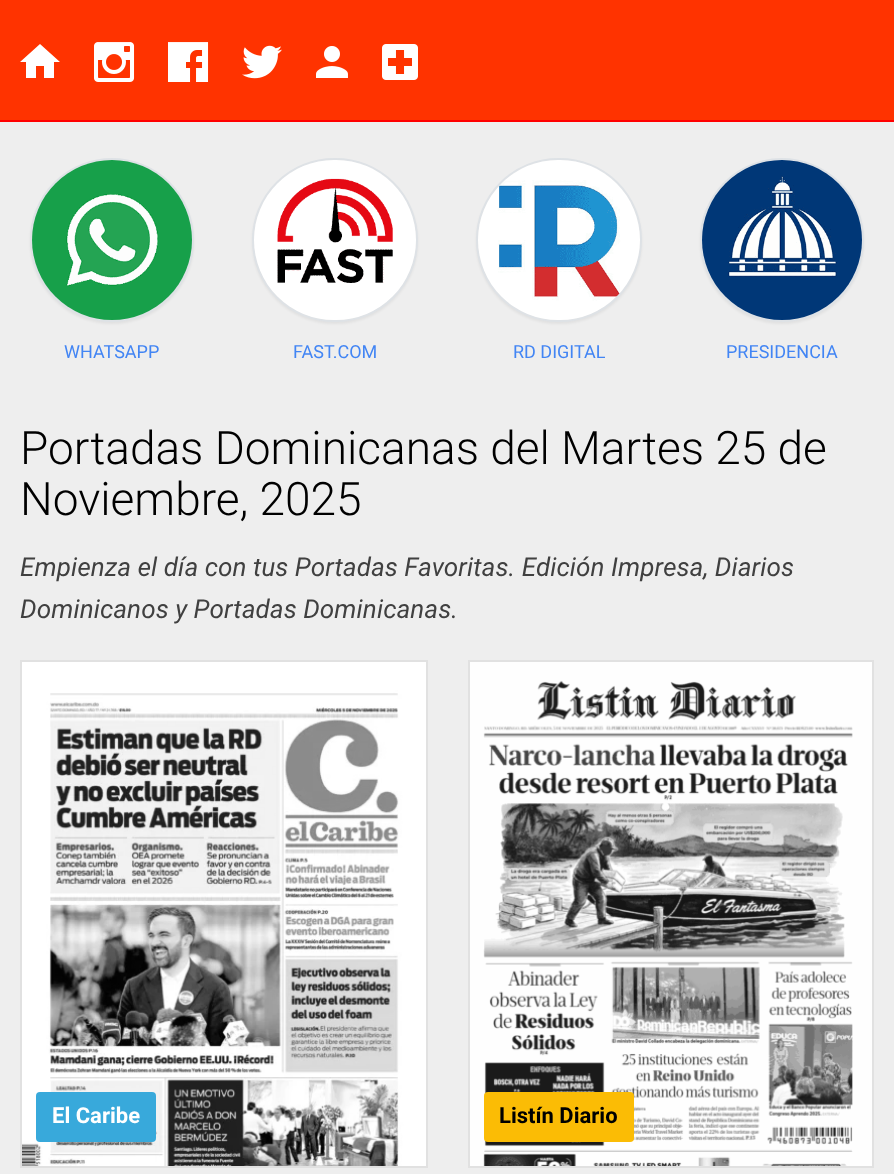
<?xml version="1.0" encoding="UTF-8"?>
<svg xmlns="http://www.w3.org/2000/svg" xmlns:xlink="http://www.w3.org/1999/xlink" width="894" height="1174">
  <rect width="100%" height="100%" fill="#eeeeee" />
  <rect width="894" height="120" fill="#ff3300" />
  <rect y="120" width="894" height="2" fill="#ff0000" />
  <path d="M 36 78 h -10 v -16 h -6 l 20 -18 l 20 18 h -6 v 16 h -10 v -12 h -8 z" fill="#ffffff" />
  <image x="94" y="42" width="41" height="40" xlink:href="image1.png" />
  <image x="168" y="42" width="41" height="40" xlink:href="image2.png" />
  <image x="242" y="45" width="40" height="34" xlink:href="image3.png" />
  <image x="316" y="46" width="32" height="32" xlink:href="image4.png" />
  <image x="382" y="44" width="36" height="36" xlink:href="image5.png" />
  <rect x="30" y="160" width="164" height="164" rx="82" fill="#000000" fill-opacity="0.05" filter="blur(1px)" />
  <circle cx="112" cy="240" r="81" fill="none" stroke="#dee2e6" stroke-width="2" />
  <image x="32" y="160" width="160" height="160" xlink:href="image6.png" />
  <rect x="252" y="160" width="166" height="164" rx="82" fill="#000000" fill-opacity="0.05" filter="blur(1px)" />
  <rect x="253" y="159" width="164" height="162" rx="81" fill="none" stroke="#dee2e6" stroke-width="2" />
  <image x="254" y="160" width="162" height="160" xlink:href="image7.png" />
  <rect x="476" y="160" width="166" height="164" rx="82" fill="#000000" fill-opacity="0.05" filter="blur(1px)" />
  <rect x="477" y="159" width="164" height="162" rx="81" fill="none" stroke="#dee2e6" stroke-width="2" />
  <image x="478" y="160" width="162" height="160" xlink:href="image8.png" />
  <rect x="700" y="160" width="164" height="164" rx="82" fill="#000000" fill-opacity="0.05" filter="blur(1px)" />
  <circle cx="782" cy="240" r="81" fill="none" stroke="#dee2e6" stroke-width="2" />
  <image x="702" y="160" width="160" height="160" xlink:href="image9.png" />
  <rect x="21" y="661" width="406" height="506" fill="none" stroke="#e1e1e1" stroke-width="2" />
  <image x="22" y="662" width="404" height="504" xlink:href="image10.png" />
  <rect x="36" y="1092" width="120" height="50" rx="4" fill="#38a9db" />
  <rect x="469" y="661" width="404" height="506" fill="none" stroke="#e1e1e1" stroke-width="2" />
  <image x="470" y="662" width="402" height="504" xlink:href="image11.png" />
  <rect x="484" y="1092" width="150" height="50" rx="4" fill="#fbbc05" />
  <text x="64" y="358" style="font-family: Roboto; font-size: 18px; fill: #4285f4">WHATSAPP</text>
  <text x="293" y="358" style="font-family: Roboto; font-size: 18px; fill: #4285f4">FAST.COM</text>
  <text x="513" y="358" style="font-family: Roboto; font-size: 18px; fill: #4285f4">RD DIGITAL</text>
  <text x="726" y="358" style="font-family: Roboto; font-size: 18px; fill: #4285f4">PRESIDENCIA</text>
  <text x="20" y="464" style="font-family: Roboto; font-size: 46px; font-weight: 300; fill: #000000">Portadas Dominicanas del Martes 25 de</text>
  <text x="20" y="515" style="font-family: Roboto; font-size: 46px; font-weight: 300; fill: #000000">Noviembre, 2025</text>
  <text x="20" y="576" style="font-family: Roboto; font-size: 26px; font-style: italic; fill: #404040">Empienza el día con tus Portadas Favoritas. Edición Impresa, Diarios</text>
  <text x="20" y="618" style="font-family: Roboto; font-size: 26px; font-style: italic; fill: #404040">Dominicanos y Portadas Dominicanas.</text>
  <text x="52" y="1123" style="font-family: Roboto; font-size: 22px; font-weight: bold; fill: #ffffff">El Caribe</text>
  <text x="499" y="1123" style="font-family: Roboto; font-size: 22px; font-weight: bold; fill: #000000">Listín Diario</text>
</svg>
